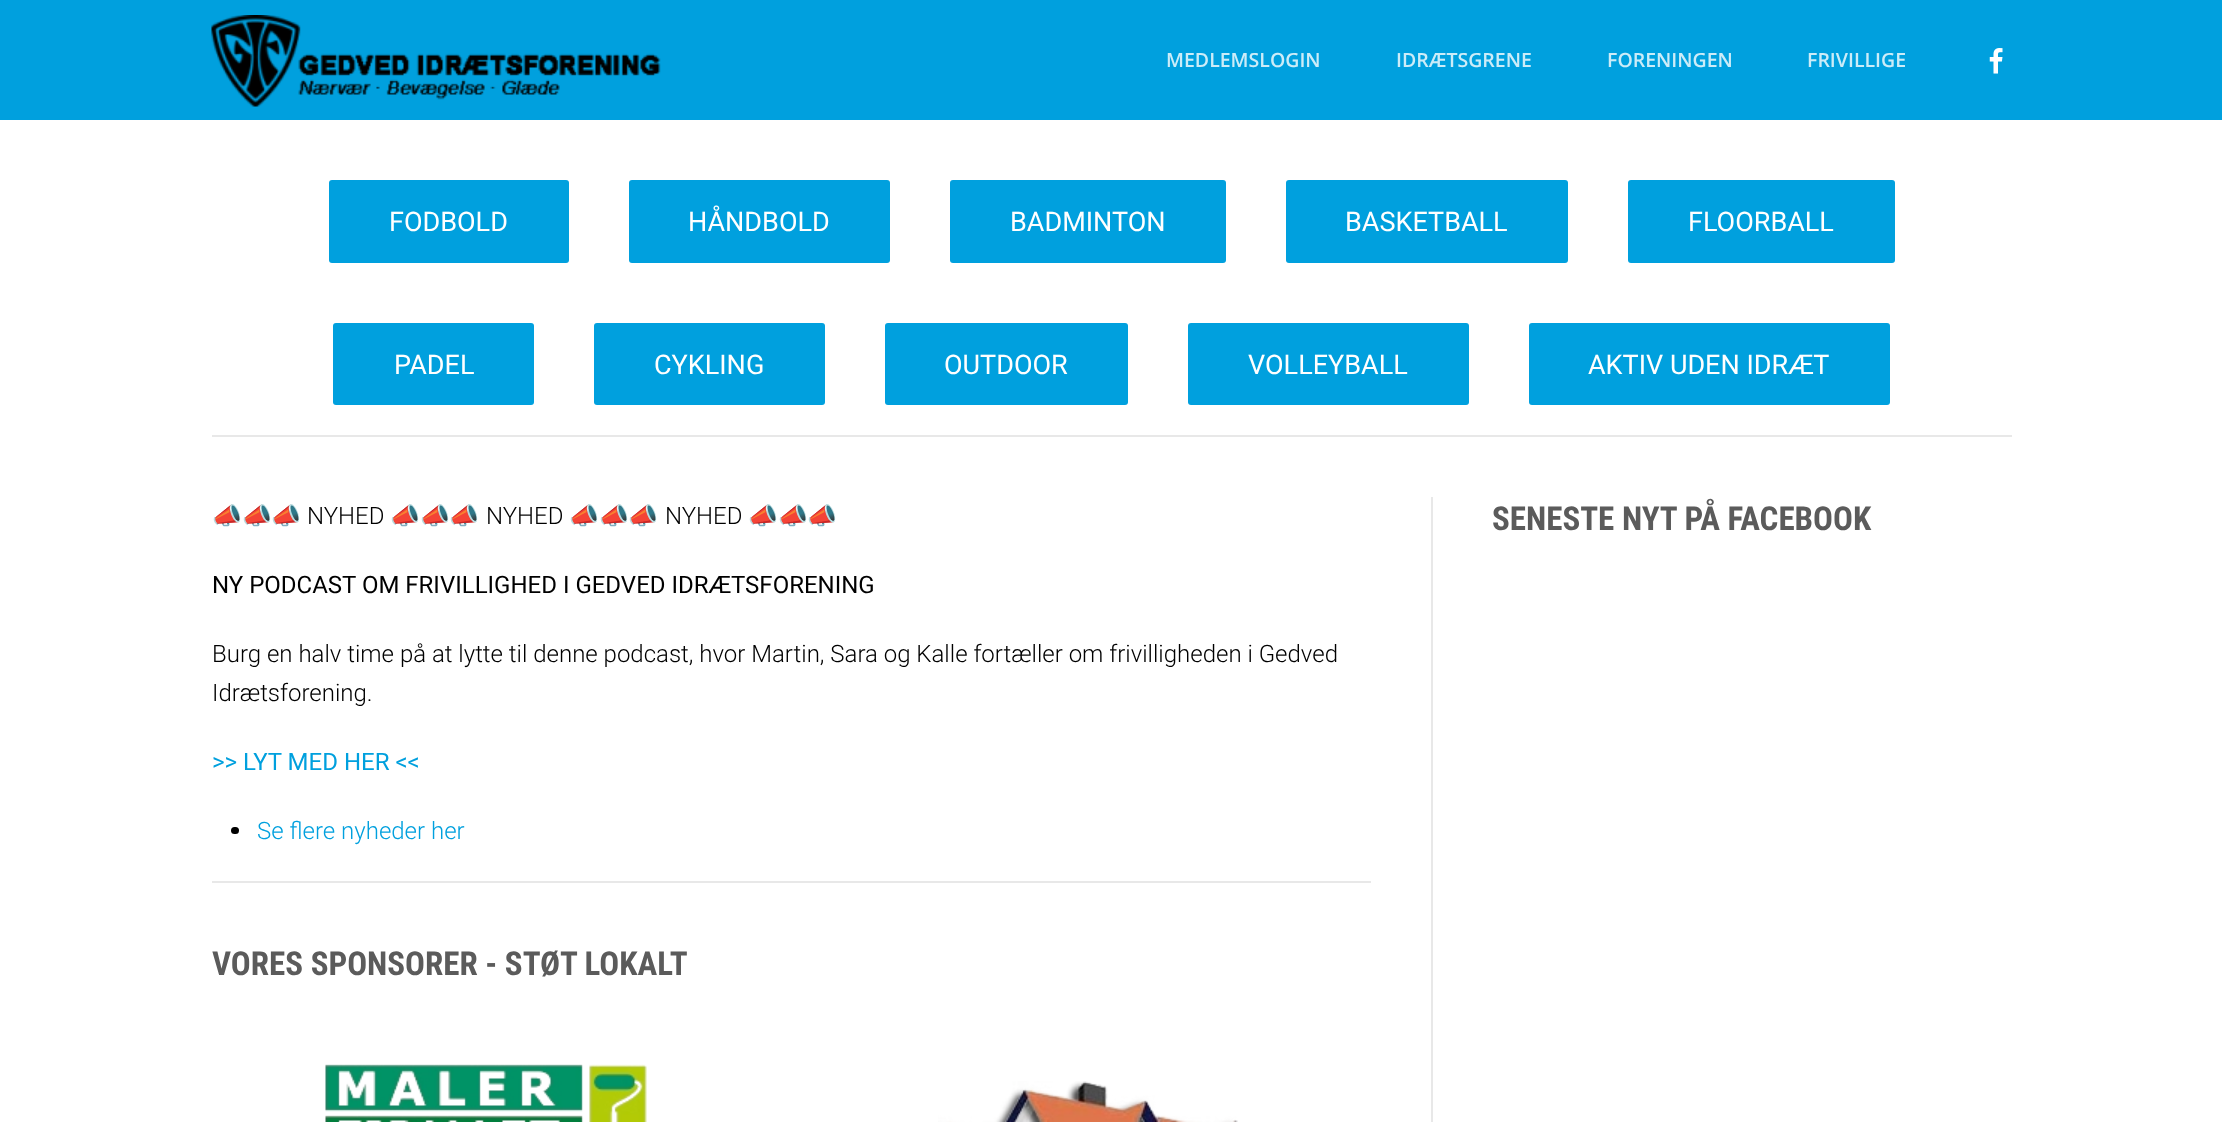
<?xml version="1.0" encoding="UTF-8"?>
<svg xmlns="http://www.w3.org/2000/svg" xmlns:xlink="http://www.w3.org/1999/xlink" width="2222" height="1122">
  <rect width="100%" height="100%" fill="#ffffff" />
  <rect width="2222" height="120" fill="#00a0de" />
  <image x="211" y="15" width="450" height="92" xlink:href="image1.png" />
  <image x="1989" y="48" width="14" height="26" xlink:href="image2.png" />
  <rect x="329" y="180" width="240" height="83" rx="3" fill="#00a0de" />
  <rect x="629" y="180" width="261" height="83" rx="3" fill="#00a0de" />
  <rect x="950" y="180" width="276" height="83" rx="3" fill="#00a0de" />
  <rect x="1286" y="180" width="282" height="83" rx="3" fill="#00a0de" />
  <rect x="1628" y="180" width="267" height="83" rx="3" fill="#00a0de" />
  <rect x="333" y="323" width="201" height="82" rx="3" fill="#00a0de" />
  <rect x="594" y="323" width="231" height="82" rx="3" fill="#00a0de" />
  <rect x="885" y="323" width="243" height="82" rx="3" fill="#00a0de" />
  <rect x="1188" y="323" width="281" height="82" rx="3" fill="#00a0de" />
  <rect x="1529" y="323" width="361" height="82" rx="3" fill="#00a0de" />
  <rect x="212" y="435" width="1800" height="2" fill="#e8e8e8" />
  <rect x="231" y="827" width="8" height="7" rx="3.5" fill="#000000" />
  <rect x="212" y="881" width="1159" height="2" fill="#e8e8e8" />
  <image x="325" y="1064" width="322" height="58" xlink:href="image3.png" />
  <image x="938" y="1081" width="300" height="41" xlink:href="image4.png" />
  <rect x="1431" y="497" width="2" height="625" fill="#e8e8e8" />
  <text x="1166" y="67" style="font-family: Open Sans; font-size: 19.5px; font-weight: 600; fill: #ccecf8">MEDLEMSLOGIN</text>
  <text x="1396" y="67" style="font-family: Open Sans; font-size: 19.5px; font-weight: 600; fill: #ccecf8">IDRÆTSGRENE</text>
  <text x="1607" y="67" style="font-family: Open Sans; font-size: 19.5px; font-weight: 600; fill: #ccecf8">FORENINGEN</text>
  <text x="1807" y="67" style="font-family: Open Sans; font-size: 19.5px; font-weight: 600; fill: #ccecf8">FRIVILLIGE</text>
  <text x="389" y="231" style="font-family: Roboto; font-size: 27px; fill: #ffffff">FODBOLD</text>
  <text x="688" y="231" style="font-family: Roboto; font-size: 27px; fill: #ffffff">HÅNDBOLD</text>
  <text x="1010" y="231" style="font-family: Roboto; font-size: 27px; fill: #ffffff">BADMINTON</text>
  <text x="1345" y="231" style="font-family: Roboto; font-size: 27px; fill: #ffffff">BASKETBALL</text>
  <text x="1688" y="231" style="font-family: Roboto; font-size: 27px; fill: #ffffff">FLOORBALL</text>
  <text x="394" y="374" style="font-family: Roboto; font-size: 27px; fill: #ffffff">PADEL</text>
  <text x="654" y="374" style="font-family: Roboto; font-size: 27px; fill: #ffffff">CYKLING</text>
  <text x="944" y="374" style="font-family: Roboto; font-size: 27px; fill: #ffffff">OUTDOOR</text>
  <text x="1248" y="374" style="font-family: Roboto; font-size: 27px; fill: #ffffff">VOLLEYBALL</text>
  <text x="1588" y="374" style="font-family: Roboto; font-size: 27px; fill: #ffffff">AKTIV UDEN IDRÆT</text>
  <text x="212" y="524" style="font-family: Noto Color Emoji; font-size: 24px; fill: #000000">📣📣📣</text>
  <text x="307" y="524" style="font-family: Roboto; font-size: 24px; font-weight: 300; fill: #000000">NYHED</text>
  <text x="390" y="524" style="font-family: Noto Color Emoji; font-size: 24px; fill: #000000">📣📣📣</text>
  <text x="486" y="524" style="font-family: Roboto; font-size: 24px; font-weight: 300; fill: #000000">NYHED</text>
  <text x="569" y="524" style="font-family: Noto Color Emoji; font-size: 24px; fill: #000000">📣📣📣</text>
  <text x="665" y="524" style="font-family: Roboto; font-size: 24px; font-weight: 300; fill: #000000">NYHED</text>
  <text x="748" y="524" style="font-family: Noto Color Emoji; font-size: 24px; fill: #000000">📣📣📣</text>
  <text x="212" y="593" style="font-family: Roboto; font-size: 24px; fill: #000000">NY PODCAST OM FRIVILLIGHED I GEDVED IDRÆTSFORENING</text>
  <text x="212" y="662" style="font-family: Roboto; font-size: 24px; font-weight: 300; fill: #000000">Burg en halv time på at lytte til denne podcast, hvor Martin, Sara og Kalle fortæller om frivilligheden i Gedved</text>
  <text x="212" y="701" style="font-family: Roboto; font-size: 24px; font-weight: 300; fill: #000000">Idrætsforening.</text>
  <text x="212" y="770" style="font-family: Roboto; font-size: 24px; fill: #00a0de">&gt;&gt; LYT MED HER &lt;&lt;</text>
  <text x="257" y="839" style="font-family: Roboto; font-size: 24px; font-weight: 300; fill: #00a0de">Se flere nyheder her</text>
  <text x="212" y="975" style="font-family: Roboto Condensed; font-size: 33px; font-weight: bold; fill: #5b5b5b">VORES SPONSORER - STØT LOKALT</text>
  <text x="1492" y="530" style="font-family: Roboto Condensed; font-size: 33px; font-weight: bold; fill: #5b5b5b">SENESTE NYT PÅ FACEBOOK</text>
</svg>
